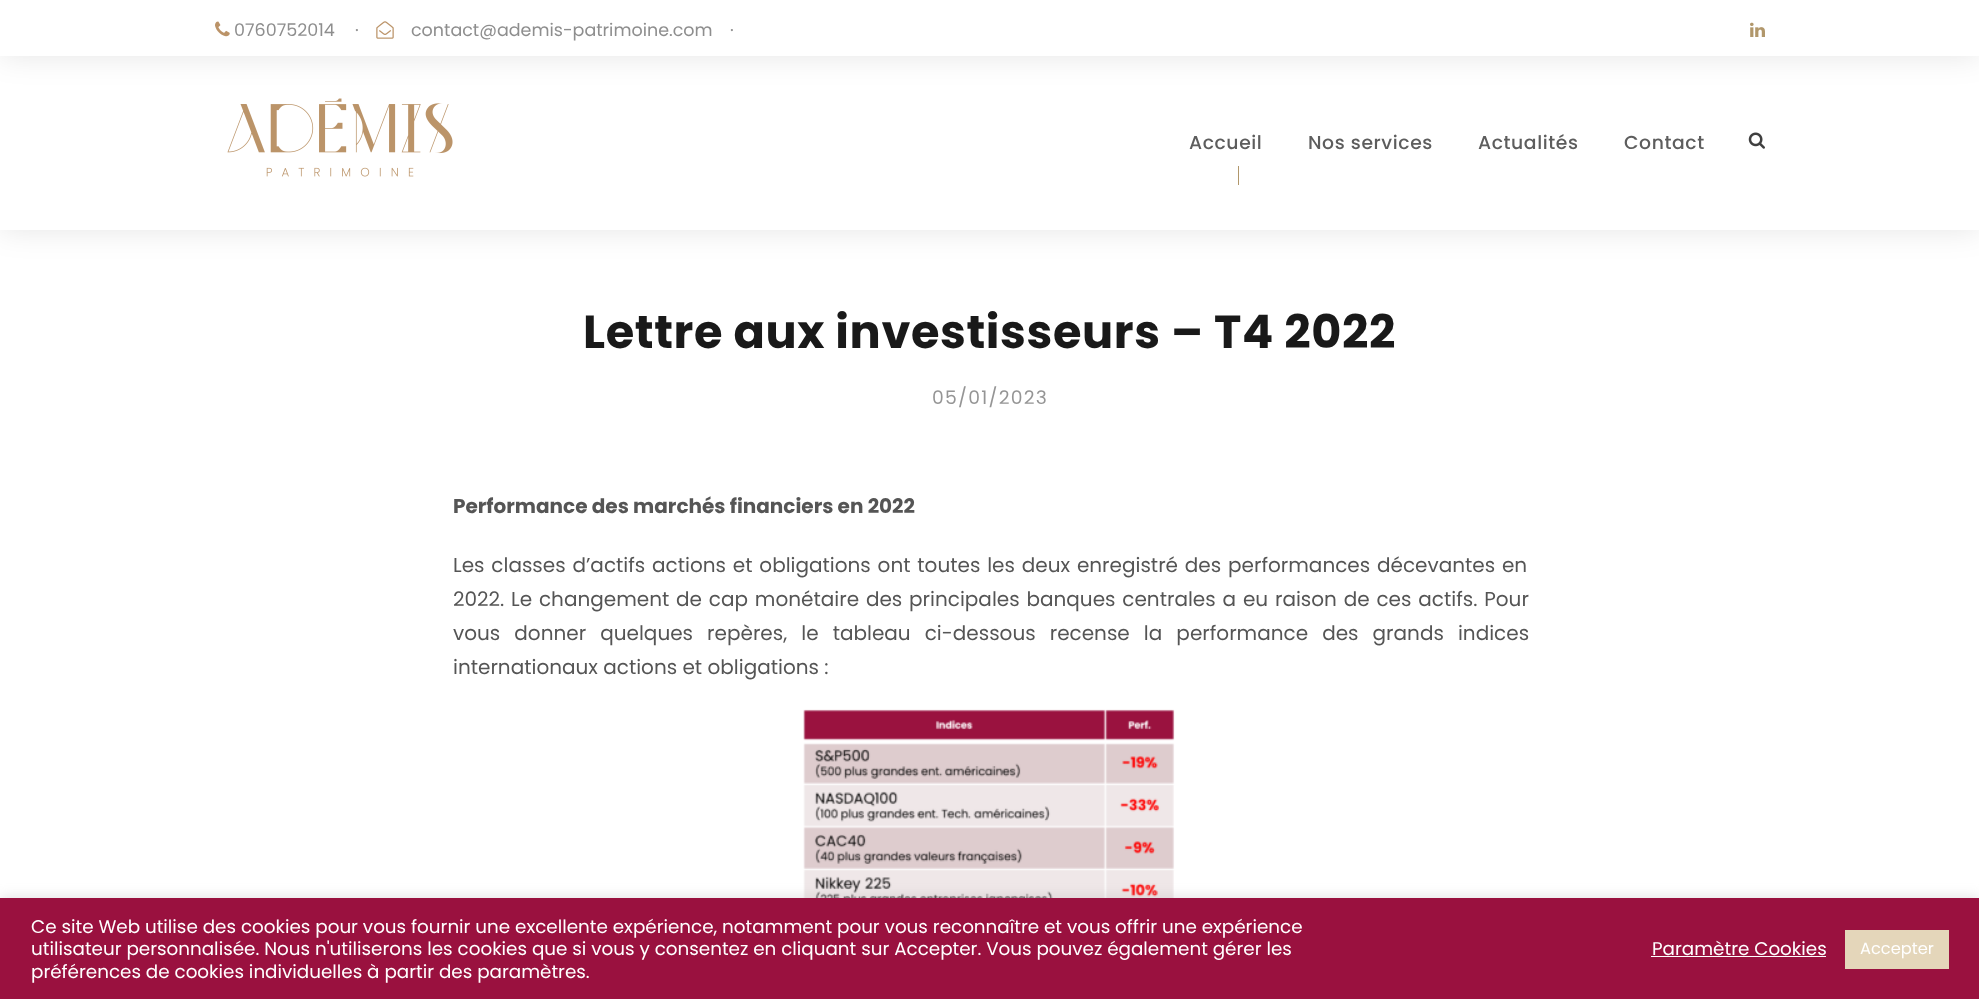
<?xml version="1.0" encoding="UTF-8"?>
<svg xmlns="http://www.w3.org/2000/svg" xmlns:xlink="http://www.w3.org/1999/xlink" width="1979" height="999">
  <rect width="100%" height="100%" fill="#ffffff" />
  <rect y="56" width="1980" height="174" fill="#000000" fill-opacity="0.1" filter="blur(15px)" />
  <rect y="56" width="1979" height="174" fill="#ffffff" />
  <image x="227" y="98" width="226" height="79" xlink:href="image4.png" />
  <rect width="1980" height="56" fill="#000000" fill-opacity="0.1" filter="blur(15px)" />
  <rect width="1979" height="56" fill="#ffffff" />
  <image x="215" y="21" width="15" height="16" xlink:href="image1.png" />
  <image x="376" y="21" width="18" height="18" xlink:href="image2.png" />
  <image x="1750" y="22" width="15" height="15" xlink:href="image3.png" />
  <rect x="1238" y="166" width="1" height="19" fill="#b1976b" />
  <image x="1748" y="132" width="17" height="17" xlink:href="image5.png" />
  <image x="803" y="709" width="372" height="189" xlink:href="image6.png" />
  <rect y="896" width="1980" height="103" fill="#acabab" fill-opacity="0.3" filter="blur(6px)" />
  <rect y="898" width="1979" height="101" fill="#9a113f" />
  <rect x="1651" y="956" width="175" height="1" fill="#ffffff" />
  <rect x="1845" y="930" width="104" height="39" fill="#e4d6ba" />
  <text x="234" y="36" style="font-family: Poppins; font-size: 17.5px; fill: #8e8e8e">0760752014</text>
  <text x="355" y="36" style="font-family: Poppins; font-size: 17.5px; fill: #8e8e8e">·</text>
  <text x="411" y="36" style="font-family: Poppins; font-size: 17.5px; fill: #8e8e8e">contact@ademis-patrimoine.com</text>
  <text x="730" y="36" style="font-family: Poppins; font-size: 17.5px; fill: #8e8e8e">·</text>
  <text x="1189" y="149" style="font-family: Poppins; font-size: 18.75px; font-weight: 500; letter-spacing: 0.6px; fill: #5d5d5d">Accueil</text>
  <text x="1308" y="149" style="font-family: Poppins; font-size: 18.75px; font-weight: 500; letter-spacing: 0.6px; fill: #5d5d5d">Nos services</text>
  <text x="1478" y="149" style="font-family: Poppins; font-size: 18.75px; font-weight: 500; letter-spacing: 0.6px; fill: #5d5d5d">Actualités</text>
  <text x="1624" y="149" style="font-family: Poppins; font-size: 18.75px; font-weight: 500; letter-spacing: 0.6px; fill: #5d5d5d">Contact</text>
  <text x="583" y="348" style="font-family: Poppins; font-size: 46.25px; font-weight: bold; letter-spacing: 0.6px; fill: #191919">Lettre aux investisseurs – T4 2022</text>
  <text x="932" y="404" style="font-family: Poppins; font-size: 18.75px; letter-spacing: 1.25px; fill: #959595">05/01/2023</text>
  <text x="453" y="513" style="font-family: Poppins; font-size: 20px; font-weight: bold; fill: #555555">Performance des marchés financiers en 2022</text>
  <text x="453" y="572" word-spacing="1.5" style="font-family: Poppins; font-size: 20px; fill: #555555">Les classes d’actifs actions et obligations ont toutes les deux enregistré des performances décevantes en</text>
  <text x="453" y="606" word-spacing="1.5" style="font-family: Poppins; font-size: 20px; fill: #555555">2022. Le changement de cap monétaire des principales banques centrales a eu raison de ces actifs. Pour</text>
  <text x="453" y="640" word-spacing="8.75" style="font-family: Poppins; font-size: 20px; fill: #555555">vous donner quelques repères, le tableau ci-dessous recense la performance des grands indices</text>
  <text x="453" y="674" style="font-family: Poppins; font-size: 20px; fill: #555555">internationaux actions et obligations :</text>
  <text x="31" y="933" style="font-family: Poppins; font-size: 18.33px; fill: #ffffff">Ce site Web utilise des cookies pour vous fournir une excellente expérience, notamment pour vous reconnaître et vous offrir une expérience</text>
  <text x="31" y="955" style="font-family: Poppins; font-size: 18.33px; fill: #ffffff">utilisateur personnalisée. Nous n'utiliserons les cookies que si vous y consentez en cliquant sur Accepter. Vous pouvez également gérer les</text>
  <text x="31" y="978" style="font-family: Poppins; font-size: 18.33px; fill: #ffffff">préférences de cookies individuelles à partir des paramètres.</text>
  <text x="1652" y="955" style="font-family: Poppins; font-size: 18.33px; fill: #ffffff">Paramètre Cookies</text>
  <text x="1860" y="954" style="font-family: Poppins; font-size: 16.25px; fill: #ffffff">Accepter</text>
</svg>
